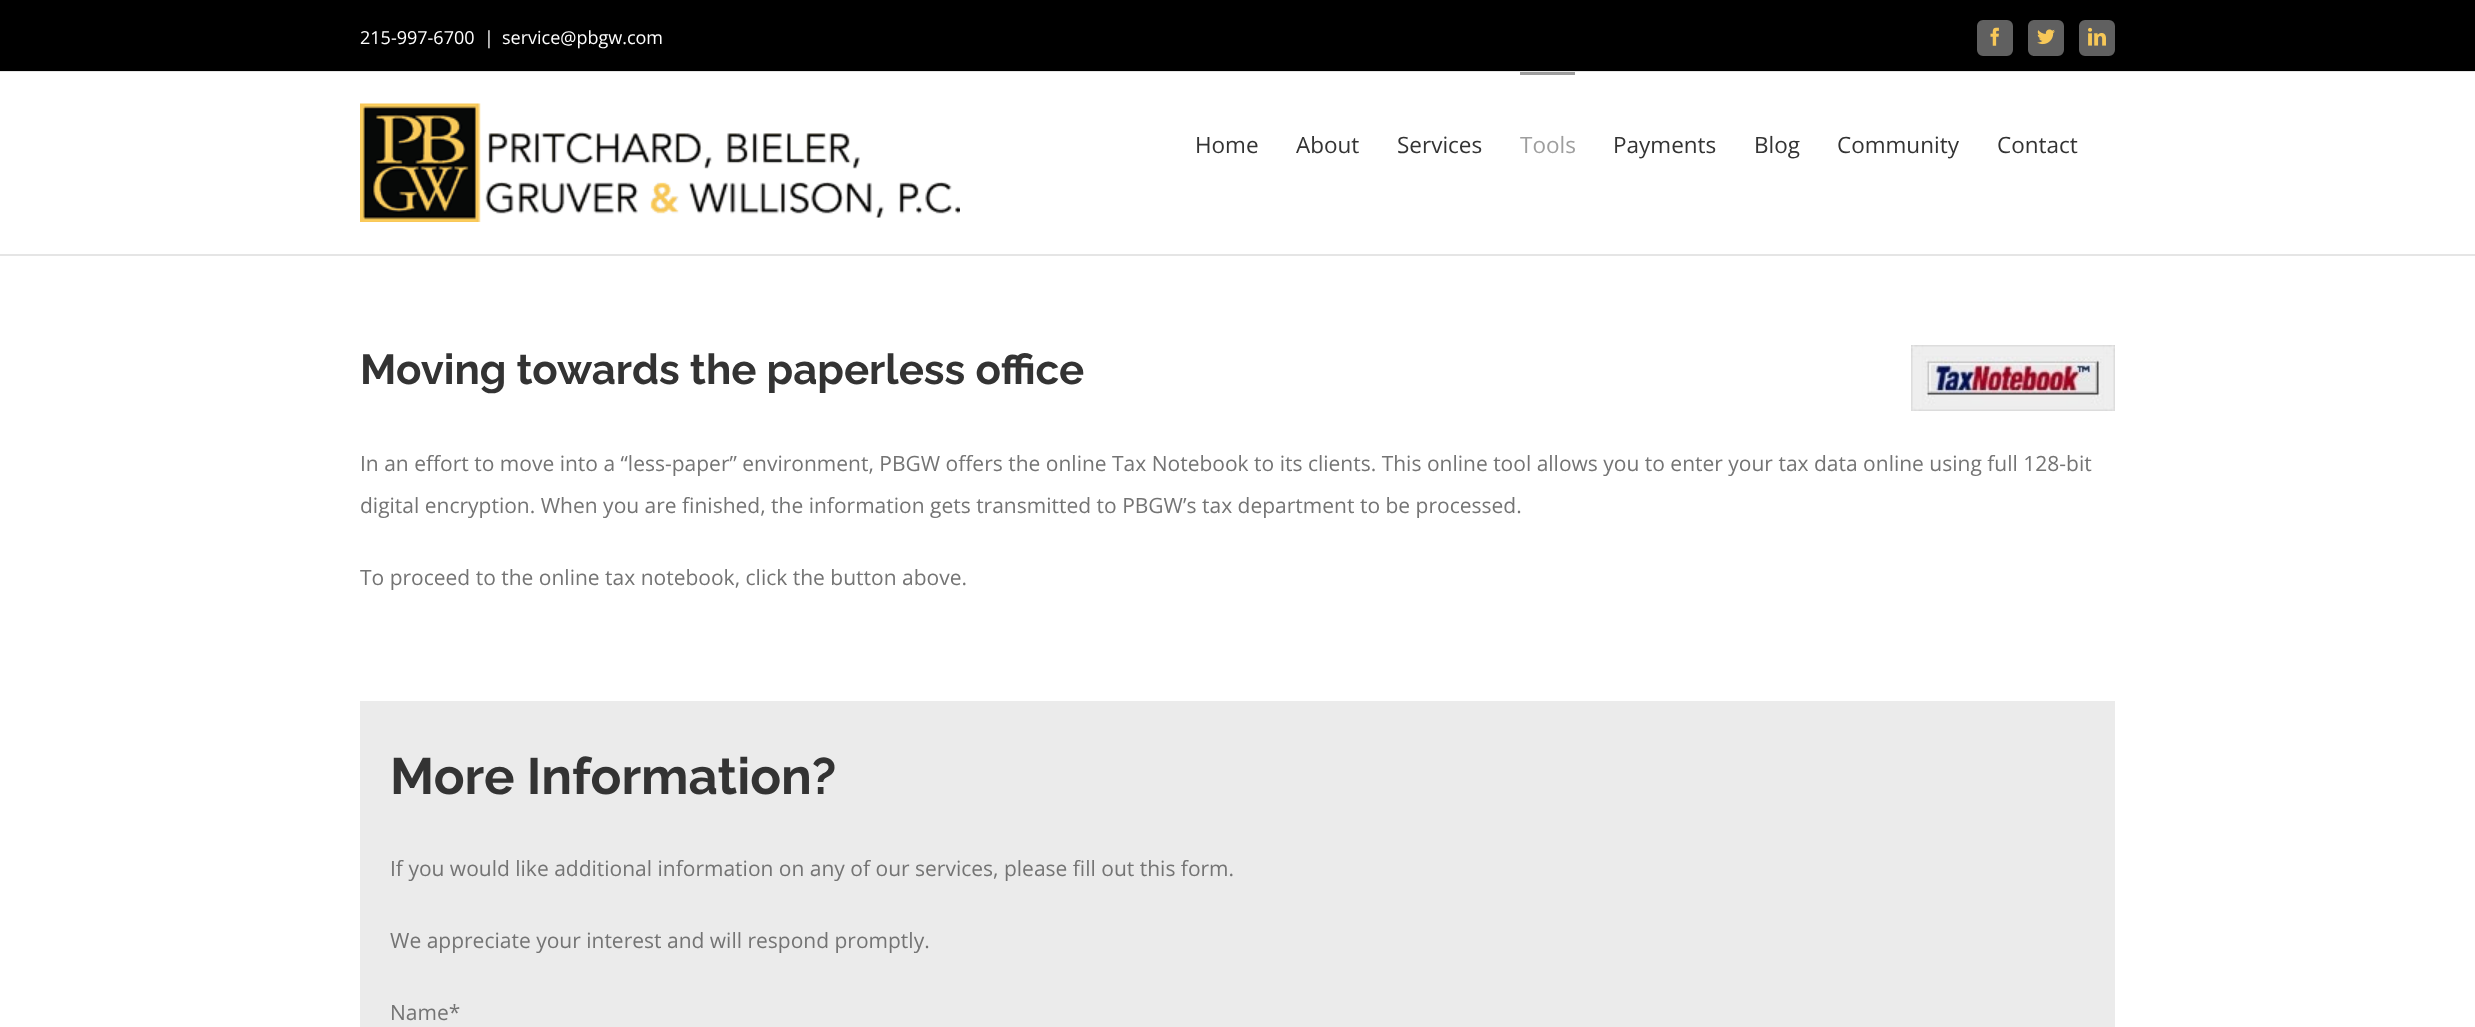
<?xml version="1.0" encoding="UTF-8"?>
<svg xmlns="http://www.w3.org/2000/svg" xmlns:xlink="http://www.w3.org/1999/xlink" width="2475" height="1027">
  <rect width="100%" height="100%" fill="#ffffff" />
  <rect width="2475" height="71" fill="#000000" />
  <rect y="71" width="2475" height="1" fill="#e5e5e5" />
  <rect x="1978" y="21" width="34" height="34" rx="5" fill="#606060" stroke="#606060" stroke-width="2" />
  <image x="1990" y="27" width="9" height="19" xlink:href="image1.png" />
  <rect x="2029" y="21" width="34" height="34" rx="5" fill="#606060" stroke="#606060" stroke-width="2" />
  <image x="2037" y="29" width="18" height="16" xlink:href="image2.png" />
  <rect x="2080" y="21" width="34" height="34" rx="5" fill="#606060" stroke="#606060" stroke-width="2" />
  <image x="2088" y="27" width="18" height="19" xlink:href="image3.png" />
  <rect y="254" width="2475" height="2" fill="#e5e5e5" />
  <image x="360" y="103" width="600" height="119" xlink:href="image4.png" />
  <rect x="1520" y="72" width="55" height="3" fill="#9e9e9e" />
  <image x="1911" y="345" width="204" height="66" xlink:href="image5.png" />
  <rect x="360" y="701" width="1755" height="326" fill="#ebebeb" />
  <text x="360" y="44" style="font-family: Open Sans; font-size: 18px; fill: #ffffff">215-997-6700</text>
  <text x="484" y="44" style="font-family: Open Sans; font-size: 18px; fill: #ffffff">|</text>
  <text x="502" y="44" style="font-family: Open Sans; font-size: 18px; fill: #ffffff">service@pbgw.com</text>
  <text x="1195" y="153" style="font-family: Open Sans; font-size: 22.5px; fill: #333333">Home</text>
  <text x="1296" y="153" style="font-family: Open Sans; font-size: 22.5px; fill: #333333">About</text>
  <text x="1397" y="153" style="font-family: Open Sans; font-size: 22.5px; fill: #333333">Services</text>
  <text x="1520" y="153" style="font-family: Open Sans; font-size: 22.5px; fill: #9e9e9e">Tools</text>
  <text x="1613" y="153" style="font-family: Open Sans; font-size: 22.5px; fill: #333333">Payments</text>
  <text x="1754" y="153" style="font-family: Open Sans; font-size: 22.5px; fill: #333333">Blog</text>
  <text x="1837" y="153" style="font-family: Open Sans; font-size: 22.5px; fill: #333333">Community</text>
  <text x="1997" y="153" style="font-family: Open Sans; font-size: 22.5px; fill: #333333">Contact</text>
  <text x="360" y="384" style="font-family: Raleway; font-size: 42px; font-weight: 100; fill: #333333">Moving towards the paperless office</text>
  <text x="360" y="471" style="font-family: Open Sans; font-size: 21px; fill: #747474">In an effort to move into a “less-paper” environment, PBGW offers the online Tax Notebook to its clients. This online tool allows you to enter your tax data online using full 128-bit</text>
  <text x="360" y="513" style="font-family: Open Sans; font-size: 21px; fill: #747474">digital encryption. When you are finished, the information gets transmitted to PBGW’s tax department to be processed.</text>
  <text x="360" y="585" style="font-family: Open Sans; font-size: 21px; fill: #747474">To proceed to the online tax notebook, click the button above.</text>
  <text x="390" y="794" style="font-family: Raleway; font-size: 51px; font-weight: 100; fill: #333333">More Information?</text>
  <text x="390" y="876" style="font-family: Open Sans; font-size: 21px; fill: #747474">If you would like additional information on any of our services, please fill out this form.</text>
  <text x="390" y="948" style="font-family: Open Sans; font-size: 21px; fill: #747474">We appreciate your interest and will respond promptly.</text>
  <text x="390" y="1020" style="font-family: Open Sans; font-size: 21px; fill: #747474">Name*</text>
</svg>
